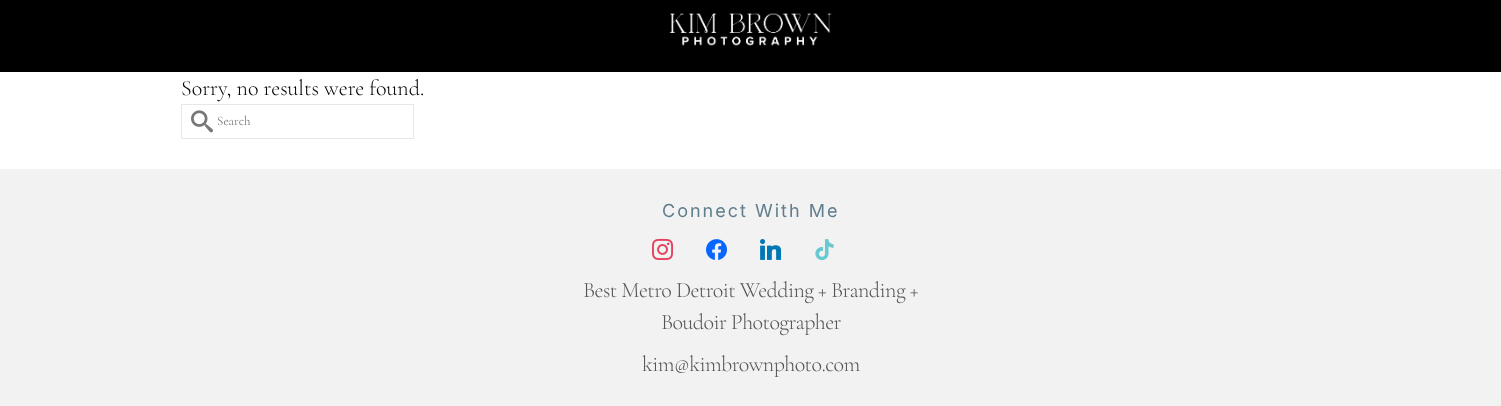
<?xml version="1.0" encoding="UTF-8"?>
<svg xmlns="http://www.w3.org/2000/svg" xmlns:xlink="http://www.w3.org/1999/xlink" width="1501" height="406">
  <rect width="100%" height="100%" fill="#ffffff" />
  <rect width="1501" height="72" fill="#000000" />
  <image x="669" y="13" width="163" height="33" xlink:href="image1.png" />
  <rect x="181.5" y="104.5" width="232" height="34" fill="none" stroke="#e7e7e7" />
  <image x="191" y="110" width="22" height="23" xlink:href="image2.png" />
  <rect y="169" width="1501" height="237" fill="#f2f2f2" />
  <image x="652" y="238" width="21" height="22" xlink:href="image3.png" />
  <image x="706" y="239" width="21" height="21" xlink:href="image4.png" />
  <image x="760" y="239" width="22" height="21" xlink:href="image5.png" />
  <image x="815" y="239" width="19" height="22" xlink:href="image6.png" />
  <text x="181" y="95" style="font-family: Cormorant Garamond; font-size: 22px; font-weight: 300; fill: #000000">Sorry, no results were found.</text>
  <text x="217" y="125" style="font-family: Cormorant Garamond; font-size: 13px; fill: #757575">Search</text>
  <text x="662" y="217" style="font-family: Inter; font-size: 18px; letter-spacing: 2px; fill: #5f7d8d">Connect With Me</text>
  <text x="583" y="297" style="font-family: Cormorant Garamond; font-size: 22px; font-weight: 300; letter-spacing: -0.55px; fill: #545454">Best Metro Detroit Wedding + Branding +</text>
  <text x="661" y="329" style="font-family: Cormorant Garamond; font-size: 22px; font-weight: 300; letter-spacing: -0.55px; fill: #545454">Boudoir Photographer</text>
  <text x="642" y="371" style="font-family: Cormorant Garamond; font-size: 22px; font-weight: 300; letter-spacing: -0.55px; fill: #545454">kim@kimbrownphoto.com</text>
</svg>
